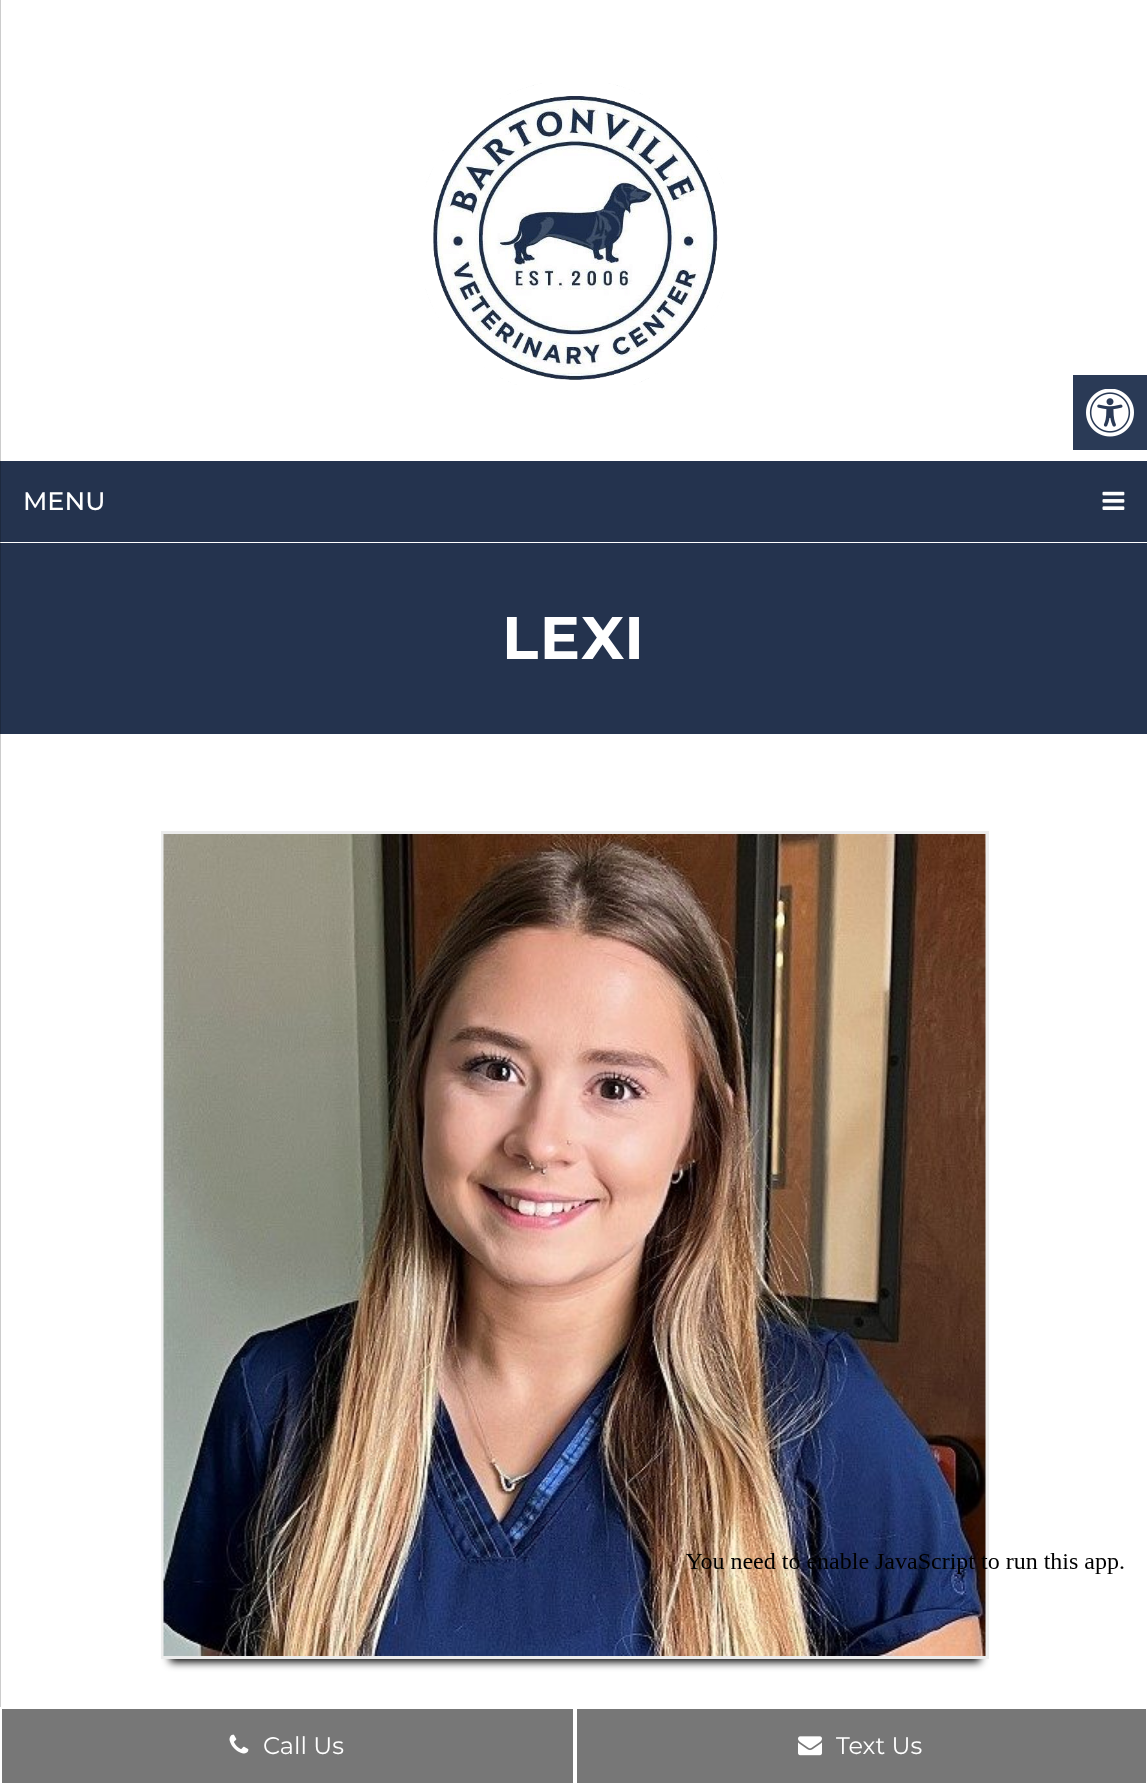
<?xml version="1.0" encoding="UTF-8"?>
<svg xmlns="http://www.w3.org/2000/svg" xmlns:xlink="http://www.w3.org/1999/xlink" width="1147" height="1785">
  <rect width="100%" height="100%" fill="#ffffff" />
  <rect width="1" height="1707" fill="#cccccc" />
  <rect x="1073" y="375" width="74" height="75" fill="#2a3a56" />
  <image x="1086" y="389" width="48" height="48" xlink:href="image1.png" />
  <image x="425" y="83" width="299" height="302" xlink:href="image2.png" />
  <rect x="1" y="461" width="1146" height="81" fill="#24334e" />
  <rect y="461" width="1" height="81" fill="#1d293e" />
  <image x="1102" y="491" width="23" height="19" xlink:href="image3.png" />
  <rect x="1" y="543" width="1146" height="191" fill="#24334e" />
  <rect y="543" width="1" height="191" fill="#1d293e" />
  <rect x="170" y="852" width="810" height="810" fill="#000000" filter="blur(4.5px)" />
  <rect x="162.5" y="832.5" width="825" height="825" fill="none" stroke="#ececec" stroke-width="3" />
  <image x="163" y="834" width="823" height="822" xlink:href="image4.png" />
  <image x="686" y="1553" width="438" height="21" xlink:href="image5.png" />
  <rect x="2" y="1709" width="571" height="74" fill="#777777" />
  <image x="229" y="1734" width="20" height="20" xlink:href="image6.png" />
  <rect x="577" y="1709" width="569" height="74" fill="#777777" />
  <image x="798" y="1736" width="24" height="20" xlink:href="image7.png" />
  <text x="23" y="510" style="font-family: Montserrat; font-size: 25.5px; font-weight: 500; fill: #ffffff">MENU</text>
  <text x="502" y="659" style="font-family: Montserrat; font-size: 60px; font-weight: bold; letter-spacing: 1.5px; fill: #ffffff">LEXI</text>
  <text x="263" y="1754" style="font-family: Montserrat; font-size: 24px; fill: #ffffff">Call Us</text>
  <text x="836" y="1754" style="font-family: Montserrat; font-size: 24px; fill: #ffffff">Text Us</text>
</svg>
